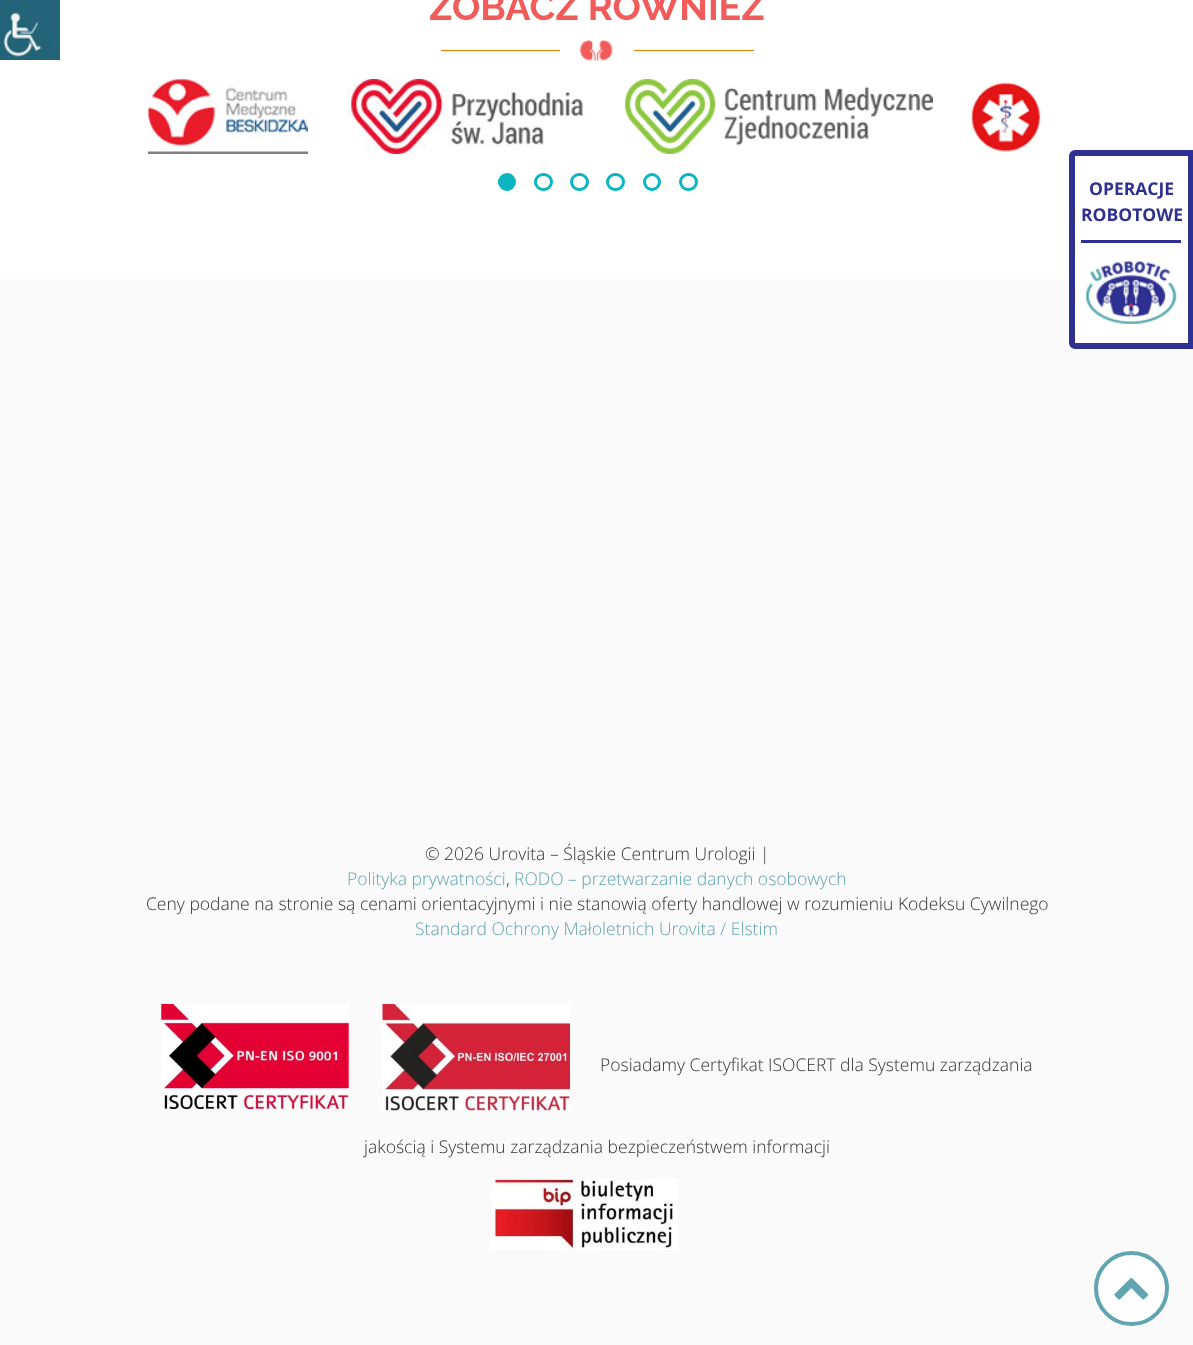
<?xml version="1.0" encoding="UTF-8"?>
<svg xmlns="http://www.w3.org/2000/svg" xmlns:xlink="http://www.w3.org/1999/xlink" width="1193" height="1345">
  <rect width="100%" height="100%" fill="#ffffff" />
  <image x="0" y="0" width="60" height="60" xlink:href="image1.png" />
  <rect x="441" y="50" width="119" height="1" fill="#ef7d00" />
  <image x="579" y="39" width="34" height="22" xlink:href="image2.png" />
  <rect x="634" y="50" width="120" height="1" fill="#ef7d00" />
  <image x="148" y="79" width="160" height="75" xlink:href="image3.png" />
  <image x="345" y="79" width="240" height="75" xlink:href="image4.png" />
  <image x="624" y="79" width="309" height="75" xlink:href="image5.png" />
  <image x="971" y="82" width="70" height="70" xlink:href="image6.png" />
  <circle cx="507" cy="182" r="7.5" fill="#0bb5c2" stroke="#0bb5c2" stroke-width="3" />
  <rect x="535.5" y="174.5" width="16" height="15" rx="7.5" fill="none" stroke="#0bb5c2" stroke-width="3" />
  <rect x="571.5" y="174.5" width="16" height="15" rx="7.5" fill="none" stroke="#0bb5c2" stroke-width="3" />
  <rect x="607.5" y="174.5" width="16" height="15" rx="7.5" fill="none" stroke="#0bb5c2" stroke-width="3" />
  <circle cx="652" cy="182" r="7.5" fill="none" stroke="#0bb5c2" stroke-width="3" />
  <rect x="680.5" y="174.5" width="16" height="15" rx="7.5" fill="none" stroke="#0bb5c2" stroke-width="3" />
  <rect y="279" width="1193" height="1066" fill="#fafafa" />
  <image x="161" y="1004" width="188" height="105" xlink:href="image7.png" />
  <image x="382" y="1004" width="188" height="107" xlink:href="image8.png" />
  <image x="491" y="1179" width="187" height="71" xlink:href="image9.png" />
  <path d="M 1075 153 h 116 v 193 h -116 c -1.5 0 -3 -1.5 -3 -3 v -187 c 0 -1.5 1.5 -3 3 -3 z" fill="#ffffff" stroke="#2e3191" stroke-width="6" />
  <rect x="1081" y="240" width="100" height="3" fill="#2e3191" />
  <image x="1086" y="261" width="91" height="63" xlink:href="image10.png" />
  <circle cx="1131.5" cy="1288.5" r="35.5" fill="#ffffff" stroke="#61a5b0" stroke-width="4" />
  <image x="1114" y="1277" width="35" height="23" xlink:href="image11.png" />
  <text x="429" y="20" style="font-family: Raleway; font-size: 37.5px; font-weight: bold; fill: #f15b5a">ZOBACZ RÓWNIEŻ</text>
  <text x="425" y="860" style="font-family: Open Sans; font-size: 17.5px; font-weight: 300; fill: #333333">© 2026 Urovita – Śląskie Centrum Urologii |</text>
  <text x="347" y="885" style="font-family: Open Sans; font-size: 17.5px; font-weight: 300; fill: #61a5b0">Polityka prywatności</text>
  <text x="506" y="885" style="font-family: Open Sans; font-size: 17.5px; font-weight: 300; fill: #333333">,</text>
  <text x="514" y="885" style="font-family: Open Sans; font-size: 17.5px; font-weight: 300; fill: #61a5b0">RODO – przetwarzanie danych osobowych</text>
  <text x="146" y="910" style="font-family: Open Sans; font-size: 17.5px; font-weight: 300; fill: #333333">Ceny podane na stronie są cenami orientacyjnymi i nie stanowią oferty handlowej w rozumieniu Kodeksu Cywilnego</text>
  <text x="415" y="935" style="font-family: Open Sans; font-size: 17.5px; font-weight: 300; fill: #61a5b0">Standard Ochrony Małoletnich Urovita / Elstim</text>
  <text x="600" y="1071" style="font-family: Open Sans; font-size: 17.5px; font-weight: 300; fill: #333333">Posiadamy Certyfikat ISOCERT dla Systemu zarządzania</text>
  <text x="364" y="1153" style="font-family: Open Sans; font-size: 17.5px; font-weight: 300; fill: #333333">jakością i Systemu zarządzania bezpieczeństwem informacji</text>
  <text x="1089" y="195" style="font-family: Open Sans; font-size: 17.5px; font-weight: bold; fill: #2e3191">OPERACJE</text>
  <text x="1081" y="221" style="font-family: Open Sans; font-size: 17.5px; font-weight: bold; fill: #2e3191">ROBOTOWE</text>
</svg>
